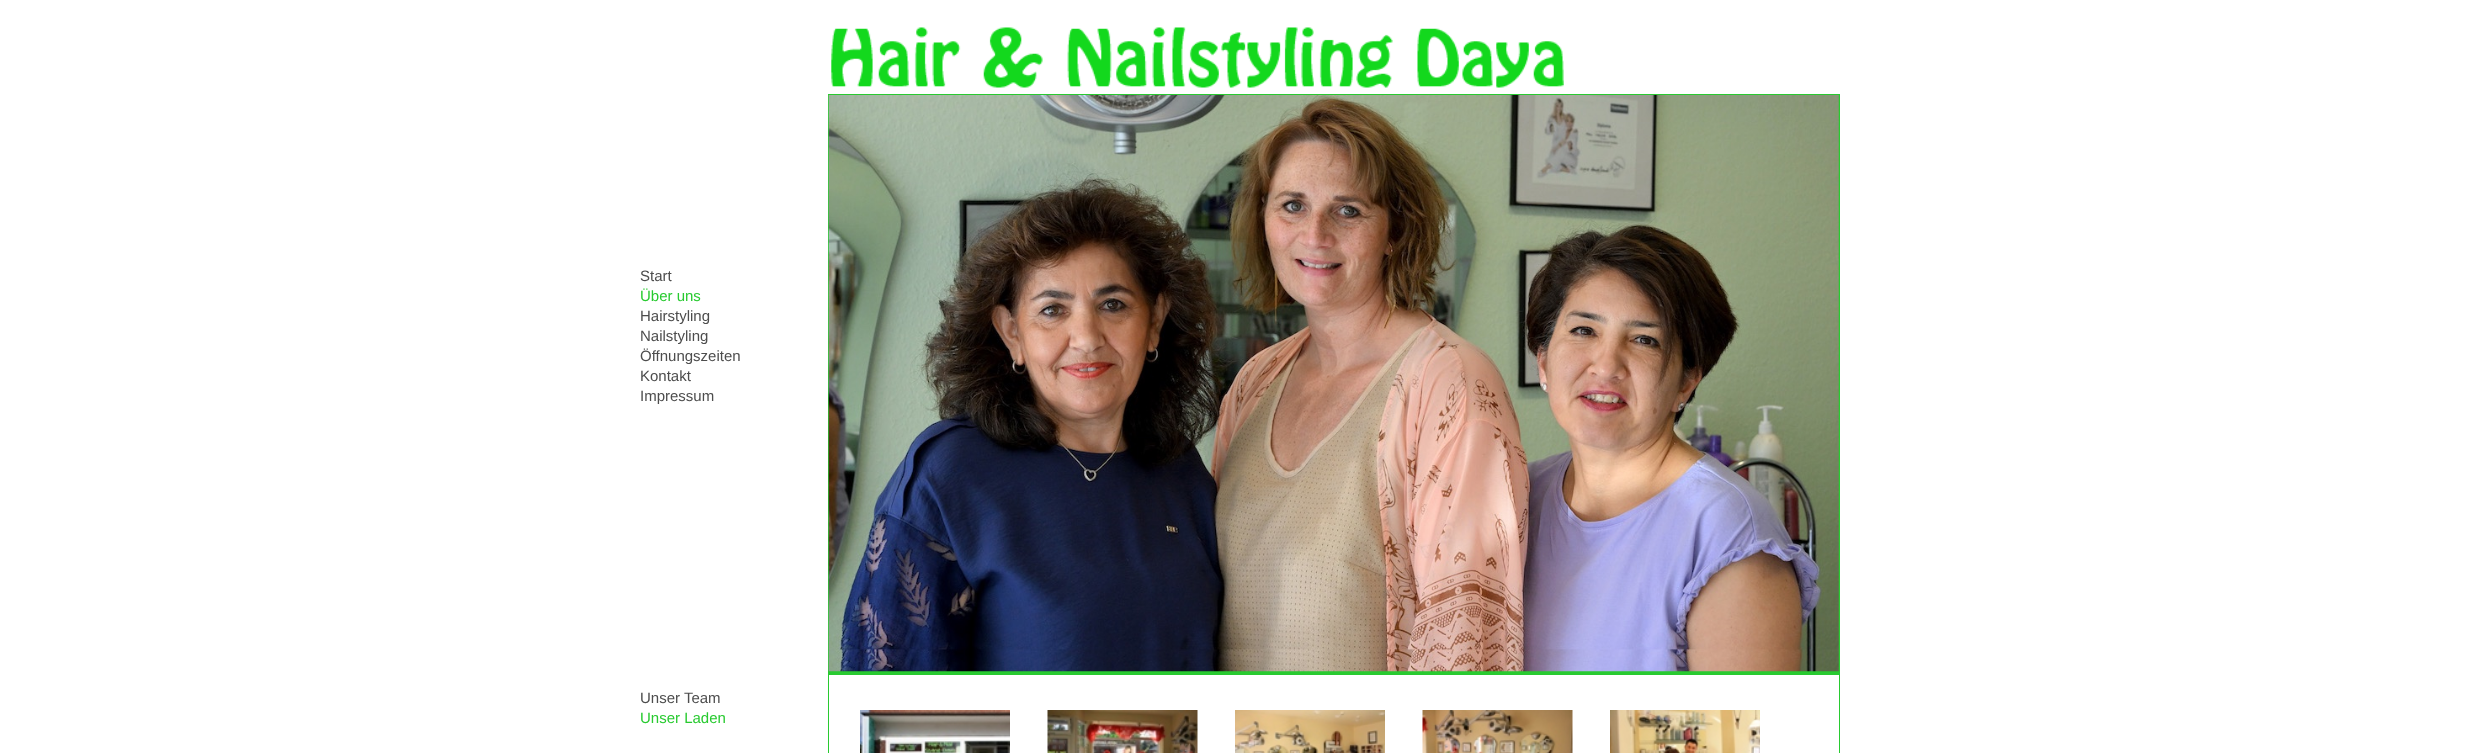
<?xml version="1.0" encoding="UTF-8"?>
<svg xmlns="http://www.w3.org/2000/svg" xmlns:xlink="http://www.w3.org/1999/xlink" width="2479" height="753">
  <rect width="100%" height="100%" fill="#ffffff" />
  <image x="831" y="27" width="733" height="61" xlink:href="image1.png" />
  <rect x="828" y="94" width="1012" height="659" fill="#28ca30" />
  <image x="828" y="95" width="1011" height="577" xlink:href="image2.png" />
  <rect x="829" y="675" width="1010" height="78" fill="#ffffff" />
  <image x="860" y="710" width="150" height="43" xlink:href="image3.png" />
  <image x="1047" y="710" width="151" height="43" xlink:href="image4.png" />
  <image x="1235" y="710" width="150" height="43" xlink:href="image5.png" />
  <image x="1422" y="710" width="151" height="43" xlink:href="image6.png" />
  <image x="1610" y="710" width="150" height="43" xlink:href="image7.png" />
  <text x="640" y="281" style="font-family: Liberation Sans; font-size: 15px; fill: #4d4d4d">Start</text>
  <text x="640" y="301" style="font-family: Liberation Sans; font-size: 15px; fill: #28ca30">Über uns</text>
  <text x="640" y="321" style="font-family: Liberation Sans; font-size: 15px; fill: #4d4d4d">Hairstyling</text>
  <text x="640" y="341" style="font-family: Liberation Sans; font-size: 15px; fill: #4d4d4d">Nailstyling</text>
  <text x="640" y="361" style="font-family: Liberation Sans; font-size: 15px; fill: #4d4d4d">Öffnungszeiten</text>
  <text x="640" y="381" style="font-family: Liberation Sans; font-size: 15px; fill: #4d4d4d">Kontakt</text>
  <text x="640" y="401" style="font-family: Liberation Sans; font-size: 15px; fill: #4d4d4d">Impressum</text>
  <text x="640" y="703" style="font-family: Liberation Sans; font-size: 15px; fill: #4d4d4d">Unser Team</text>
  <text x="640" y="723" style="font-family: Liberation Sans; font-size: 15px; fill: #28ca30">Unser Laden</text>
</svg>
